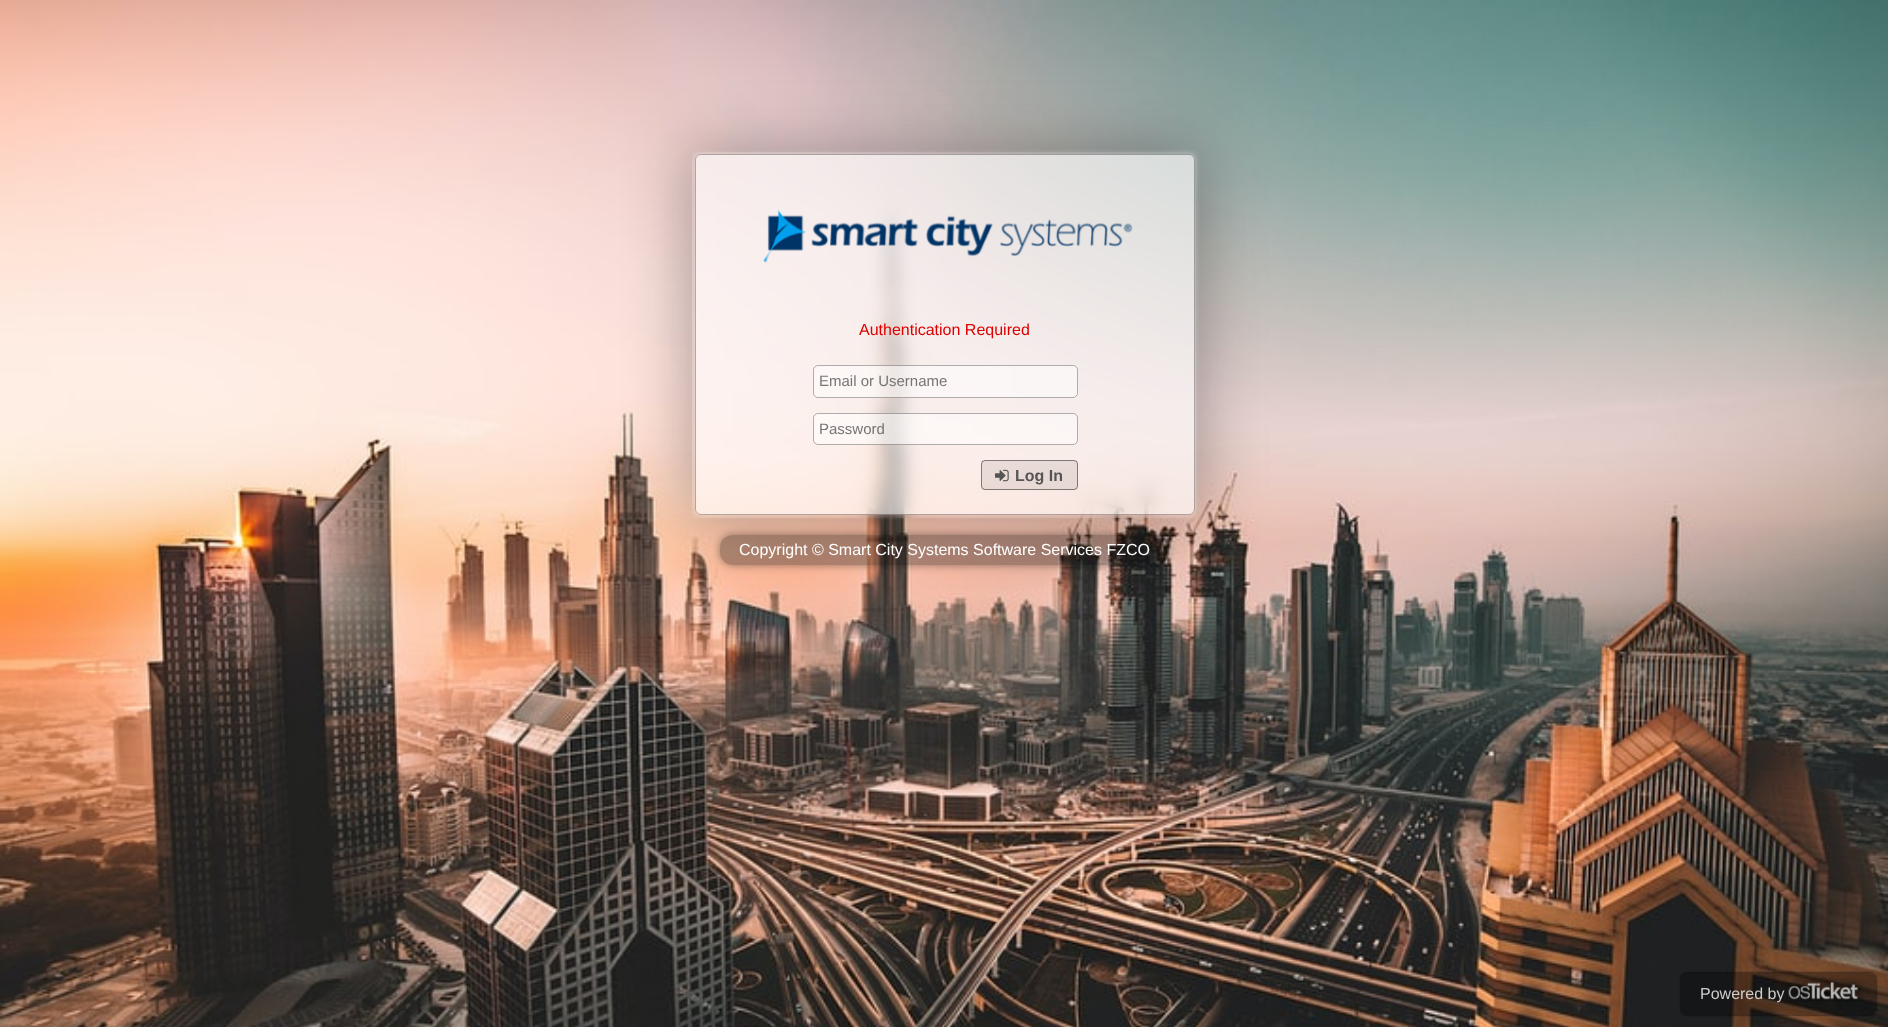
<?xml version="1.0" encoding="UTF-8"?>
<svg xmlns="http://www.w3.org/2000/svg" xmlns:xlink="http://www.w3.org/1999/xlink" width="1888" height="1027">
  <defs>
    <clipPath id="clip1"><path d="M 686 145 h 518 v 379 h -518 z m 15 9 h 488 c 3.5 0 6 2.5 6 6 v 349 c 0 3.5 -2.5 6 -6 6 h -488 c -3.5 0 -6 -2.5 -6 -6 v -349 c 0 -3.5 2.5 -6 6 -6 z" clip-rule="evenodd" /></clipPath>
    <clipPath id="clip2"><path d="M 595 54 h 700 v 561 h -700 z m 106 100 h 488 c 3.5 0 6 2.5 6 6 v 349 c 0 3.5 -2.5 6 -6 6 h -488 c -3.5 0 -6 -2.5 -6 -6 v -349 c 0 -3.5 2.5 -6 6 -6 z" clip-rule="evenodd" /></clipPath>
    <clipPath id="clip3"><path d="M 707 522 h 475 v 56 h -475 z m 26 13 h 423 c 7 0 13 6 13 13 v 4 c 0 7 -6 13 -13 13 h -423 c -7 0 -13 -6 -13 -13 v -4 c 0 -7 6 -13 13 -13 z" clip-rule="evenodd" /></clipPath>
    <clipPath id="clip4"><path d="M 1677 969 h 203 v 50 h -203 z m 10 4 h 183 c 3.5 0 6 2.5 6 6 v 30 c 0 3.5 -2.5 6 -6 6 h -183 c -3.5 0 -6 -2.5 -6 -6 v -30 c 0 -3.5 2.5 -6 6 -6 z" clip-rule="evenodd" /></clipPath>
  </defs>
  <rect width="100%" height="100%" fill="#ffffff" />
  <image x="0" y="0" width="1888" height="1027" xlink:href="image1.png" />
  <g clip-path="url(#clip1)">
    <rect x="696" y="155" width="498" height="359" rx="5" fill="#ffffff" filter="blur(3px)" />
  </g>
  <g clip-path="url(#clip2)">
    <rect x="689" y="148" width="512" height="373" rx="13" fill="#000000" fill-opacity="0.3" filter="blur(31px)" />
  </g>
  <image x="692" y="152" width="504" height="366" xlink:href="image2.png" />
  <rect x="695" y="154" width="500" height="361" rx="6" fill="#ffffff" fill-opacity="0.6" />
  <rect x="695.5" y="154.5" width="499" height="360" rx="5.5" fill="none" stroke="#000000" stroke-opacity="0.3" />
  <image x="763" y="210" width="370" height="53" xlink:href="image3.png" />
  <rect x="813" y="365" width="265" height="33" rx="5" fill="#ffffff" fill-opacity="0.5" />
  <rect x="813.5" y="365.5" width="264" height="32" rx="4.5" fill="none" stroke="#000000" stroke-opacity="0.3" />
  <rect x="813" y="413" width="265" height="32" rx="5" fill="#ffffff" fill-opacity="0.5" />
  <rect x="813.5" y="413.5" width="264" height="31" rx="4.5" fill="none" stroke="#000000" stroke-opacity="0.3" />
  <rect x="981" y="460" width="97" height="30" rx="4" fill="#000000" fill-opacity="0.07" />
  <rect x="981.5" y="460.5" width="96" height="29" rx="3.5" fill="none" stroke="#000000" stroke-opacity="0.45" />
  <image x="995" y="469" width="14" height="13" xlink:href="image4.png" />
  <g clip-path="url(#clip3)">
    <rect x="720" y="535" width="449" height="30" rx="13" fill="#000000" fill-opacity="0.4" filter="blur(4px)" />
  </g>
  <rect x="720" y="535" width="449" height="30" rx="13" fill="#000000" fill-opacity="0.3" />
  <g clip-path="url(#clip4)">
    <rect x="1681" y="973" width="195" height="42" rx="6" fill="#000000" filter="blur(1px)" />
  </g>
  <rect x="1681" y="973" width="195" height="42" rx="6" fill="#000000" fill-opacity="0.3" />
  <text x="859" y="335" style="font-family: Liberation Sans; font-size: 16px; fill: #dd0000">Authentication Required</text>
  <text x="819" y="386" style="font-family: Liberation Sans; font-size: 15px; fill: #757575">Email or Username</text>
  <text x="819" y="434" style="font-family: Liberation Sans; font-size: 15px; fill: #757575">Password</text>
  <text x="1015" y="481" style="font-family: Liberation Sans; font-size: 16px; font-weight: bold; fill: #555555">Log In</text>
  <text x="739" y="555" style="font-family: Liberation Sans; font-size: 16px; fill: #ffffff">Copyright © Smart City Systems Software Services FZCO</text>
  <text x="1700" y="999" style="font-family: Liberation Sans; font-size: 16px; fill: #cccccc">Powered by</text>
  <image x="1782" y="978" width="80" height="24" xlink:href="image5.png" />
</svg>
